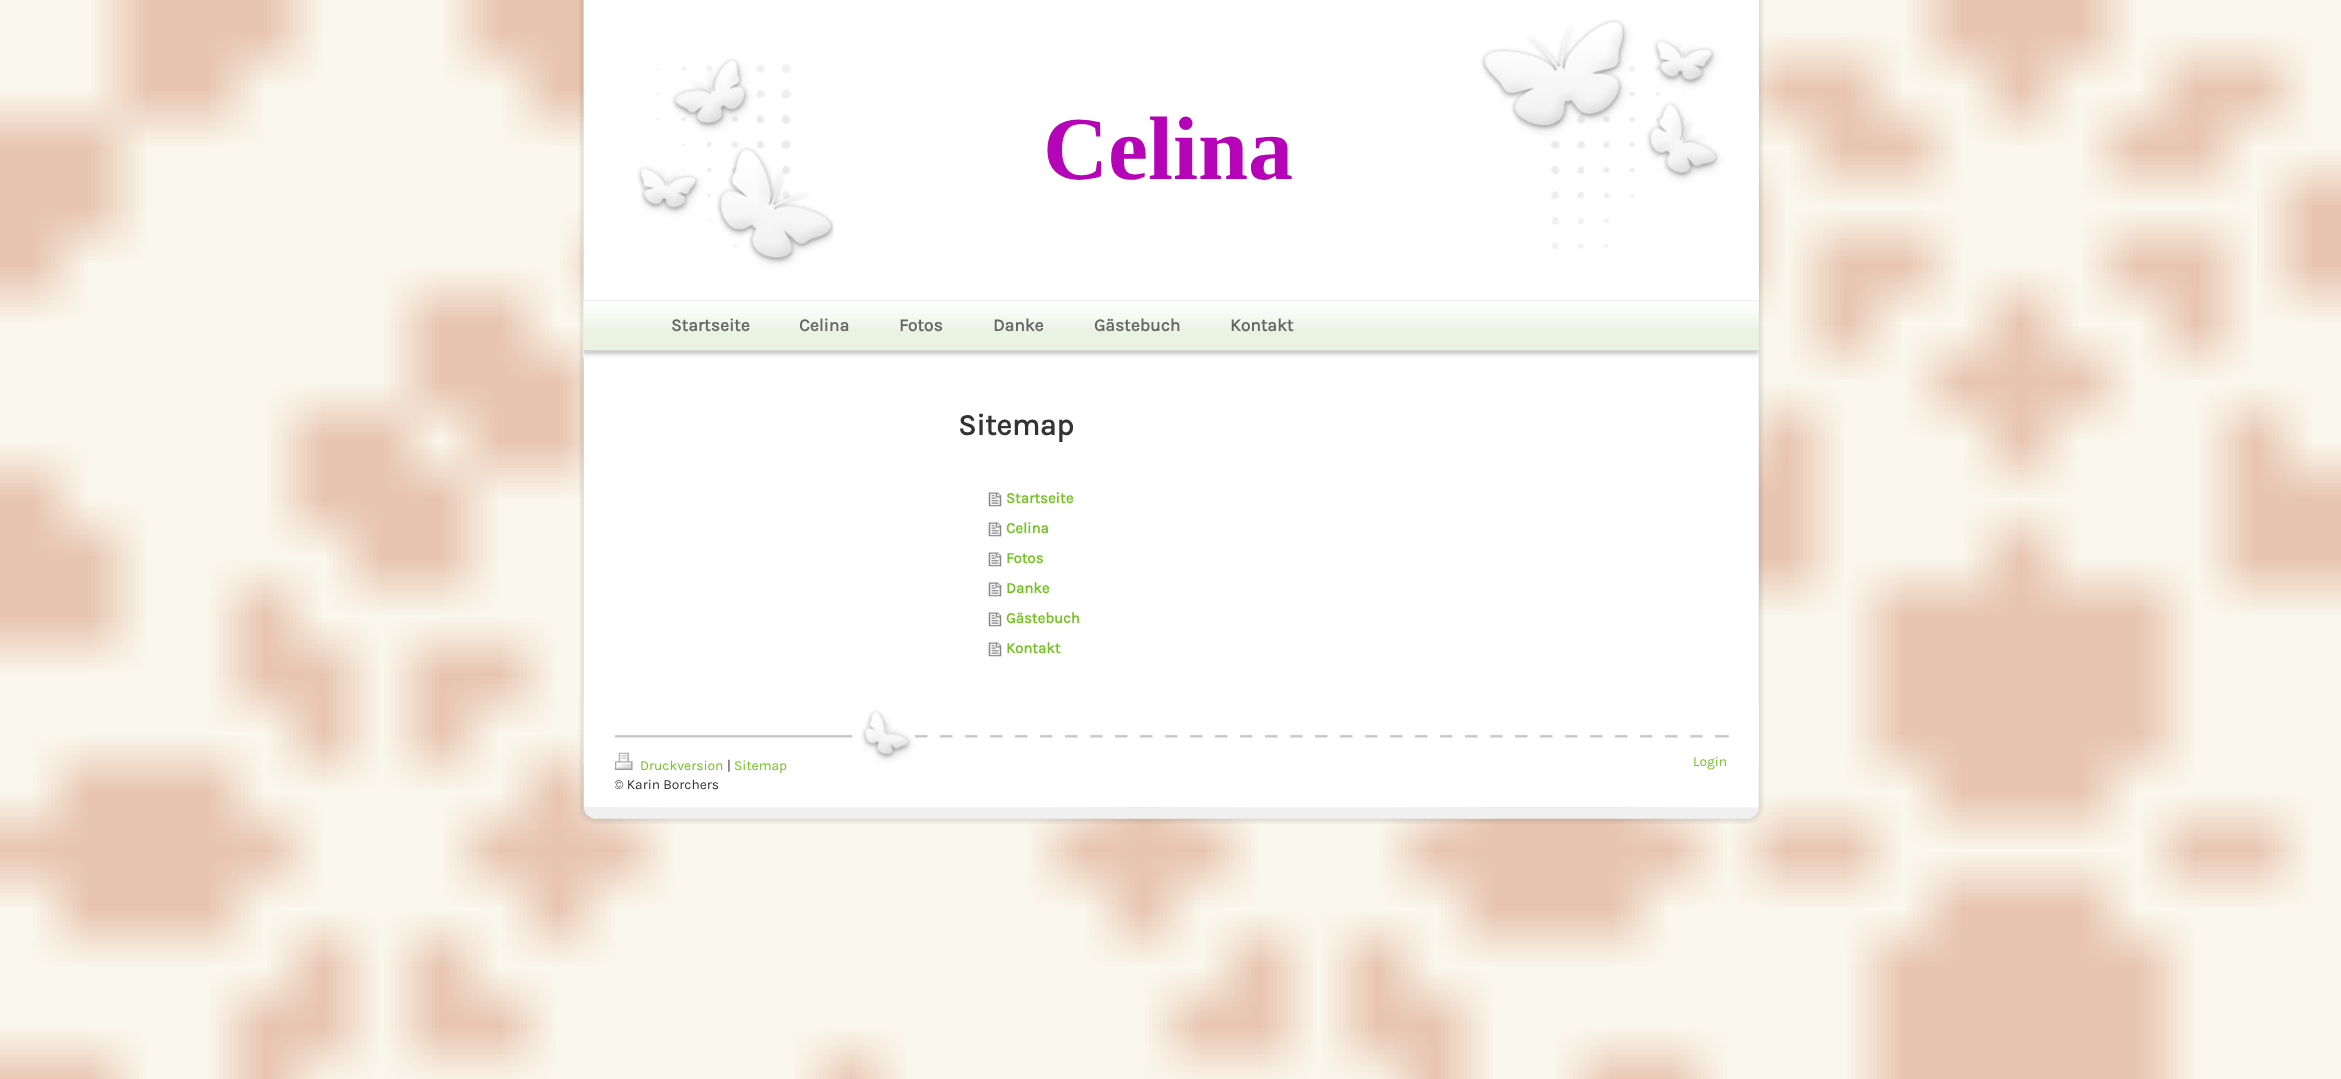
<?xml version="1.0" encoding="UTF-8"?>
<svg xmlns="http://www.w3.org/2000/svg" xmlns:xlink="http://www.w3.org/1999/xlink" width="2341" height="1079">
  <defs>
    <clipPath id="clip1"><rect x="615" y="753" width="1113" height="42" /></clipPath>
  </defs>
  <rect width="100%" height="100%" fill="#ffffff" />
  <image x="0" y="0" width="2341" height="1079" xlink:href="image1.png" />
  <image x="579" y="0" width="1185" height="808" xlink:href="image2.png" />
  <image x="583" y="0" width="251" height="300" xlink:href="image3.png" />
  <image x="1480" y="0" width="279" height="300" xlink:href="image4.png" />
  <rect x="583" y="300" width="1176" height="58" fill="#eaf3e1" />
  <image x="583" y="300" width="1176" height="29" xlink:href="image5.png" />
  <image x="583" y="350" width="1176" height="8" xlink:href="image6.png" />
  <image x="988" y="492" width="14" height="15" xlink:href="image7.png" />
  <image x="988" y="522" width="14" height="15" xlink:href="image7.png" />
  <image x="988" y="552" width="14" height="15" xlink:href="image7.png" />
  <image x="988" y="582" width="14" height="15" xlink:href="image8.png" />
  <image x="988" y="612" width="14" height="15" xlink:href="image7.png" />
  <image x="988" y="642" width="14" height="15" xlink:href="image7.png" />
  <image x="583" y="702" width="1176" height="63" xlink:href="image9.png" />
  <image x="615" y="752" width="18" height="18" xlink:href="image10.png" />
  <image x="579" y="807" width="1184" height="17" xlink:href="image11.png" />
  <text x="1043" y="179" style="font-family: Liberation Serif; font-size: 90px; font-weight: bold; fill: #b504b7">Celina</text>
  <text x="671" y="331" style="font-family: Karla; font-size: 17.5px; font-weight: bold; fill: #666666">Startseite</text>
  <text x="799" y="331" style="font-family: Karla; font-size: 17.5px; font-weight: bold; fill: #666666">Celina</text>
  <text x="899" y="331" style="font-family: Karla; font-size: 17.5px; font-weight: bold; fill: #666666">Fotos</text>
  <text x="993" y="331" style="font-family: Karla; font-size: 17.5px; font-weight: bold; fill: #666666">Danke</text>
  <text x="1094" y="331" style="font-family: Karla; font-size: 17.5px; font-weight: bold; fill: #666666">Gästebuch</text>
  <text x="1230" y="331" style="font-family: Karla; font-size: 17.5px; font-weight: bold; fill: #666666">Kontakt</text>
  <text x="958" y="435" style="font-family: Karla; font-size: 30px; font-weight: bold; fill: #333333">Sitemap</text>
  <text x="1006" y="503" style="font-family: Karla; font-size: 15px; font-weight: bold; fill: #74c221">Startseite</text>
  <text x="1006" y="533" style="font-family: Karla; font-size: 15px; font-weight: bold; fill: #74c221">Celina</text>
  <text x="1006" y="563" style="font-family: Karla; font-size: 15px; font-weight: bold; fill: #74c221">Fotos</text>
  <text x="1006" y="593" style="font-family: Karla; font-size: 15px; font-weight: bold; fill: #74c221">Danke</text>
  <text x="1006" y="623" style="font-family: Karla; font-size: 15px; font-weight: bold; fill: #74c221">Gästebuch</text>
  <text x="1006" y="653" style="font-family: Karla; font-size: 15px; font-weight: bold; fill: #74c221">Kontakt</text>
  <text x="640" y="770" style="font-family: Karla; font-size: 13.75px; fill: #74c221">Druckversion</text>
  <text x="727" y="770" style="font-family: Karla; font-size: 13.75px; fill: #333333">|</text>
  <text x="734" y="770" style="font-family: Karla; font-size: 13.75px; fill: #74c221">Sitemap</text>
  <g clip-path="url(#clip1)">
    <text x="614" y="789" style="font-family: Karla; font-size: 13.75px; fill: #333333">© Karin Borchers</text>
  </g>
  <text x="1693" y="766" style="font-family: Karla; font-size: 13.75px; fill: #74c221">Login</text>
</svg>
